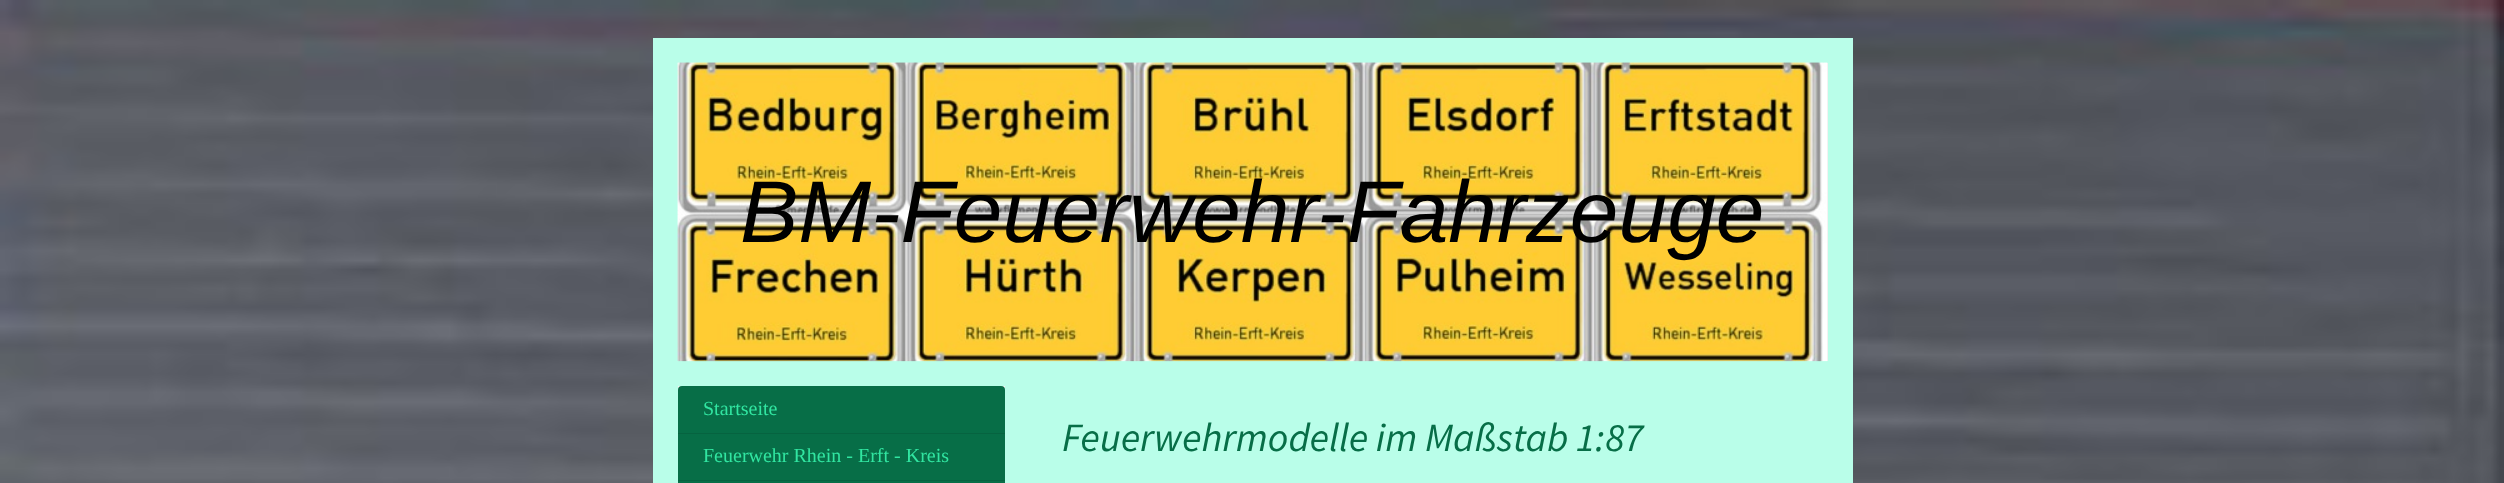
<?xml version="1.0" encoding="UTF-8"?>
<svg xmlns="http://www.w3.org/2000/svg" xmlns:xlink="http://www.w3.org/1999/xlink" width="2504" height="483">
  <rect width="100%" height="100%" fill="#ffffff" />
  <image x="0" y="0" width="2504" height="483" xlink:href="image1.png" />
  <rect x="653" y="38" width="1200" height="445" fill="#b9fee9" />
  <image x="677" y="62" width="1151" height="300" xlink:href="image2.png" />
  <rect x="1827" y="63" width="1" height="298" fill="#eeeeee" />
  <image x="677" y="62" width="1151" height="300" xlink:href="image3.png" />
  <rect x="678" y="386" width="327" height="4" fill="#f5f5f5" />
  <rect x="678" y="386" width="327" height="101" rx="4" fill="#076e47" />
  <rect x="678" y="433" width="327" height="1" fill="#066340" />
  <rect x="678" y="480" width="327" height="1" fill="#066340" />
  <text x="740" y="242" style="font-family: Liberation Sans; font-size: 87.5px; font-style: italic; fill: #000000">BM-Feuerwehr-Fahrzeuge</text>
  <text x="703" y="415" style="font-family: Liberation Serif; font-size: 20px; fill: #31e5a1">Startseite</text>
  <text x="703" y="462" style="font-family: Liberation Serif; font-size: 20px; fill: #31e5a1">Feuerwehr Rhein - Erft - Kreis</text>
  <text x="1062" y="451" style="font-family: Source Sans Pro; font-size: 40px; font-style: italic; fill: #076e47">Feuerwehrmodelle im Maßstab 1:87</text>
</svg>
